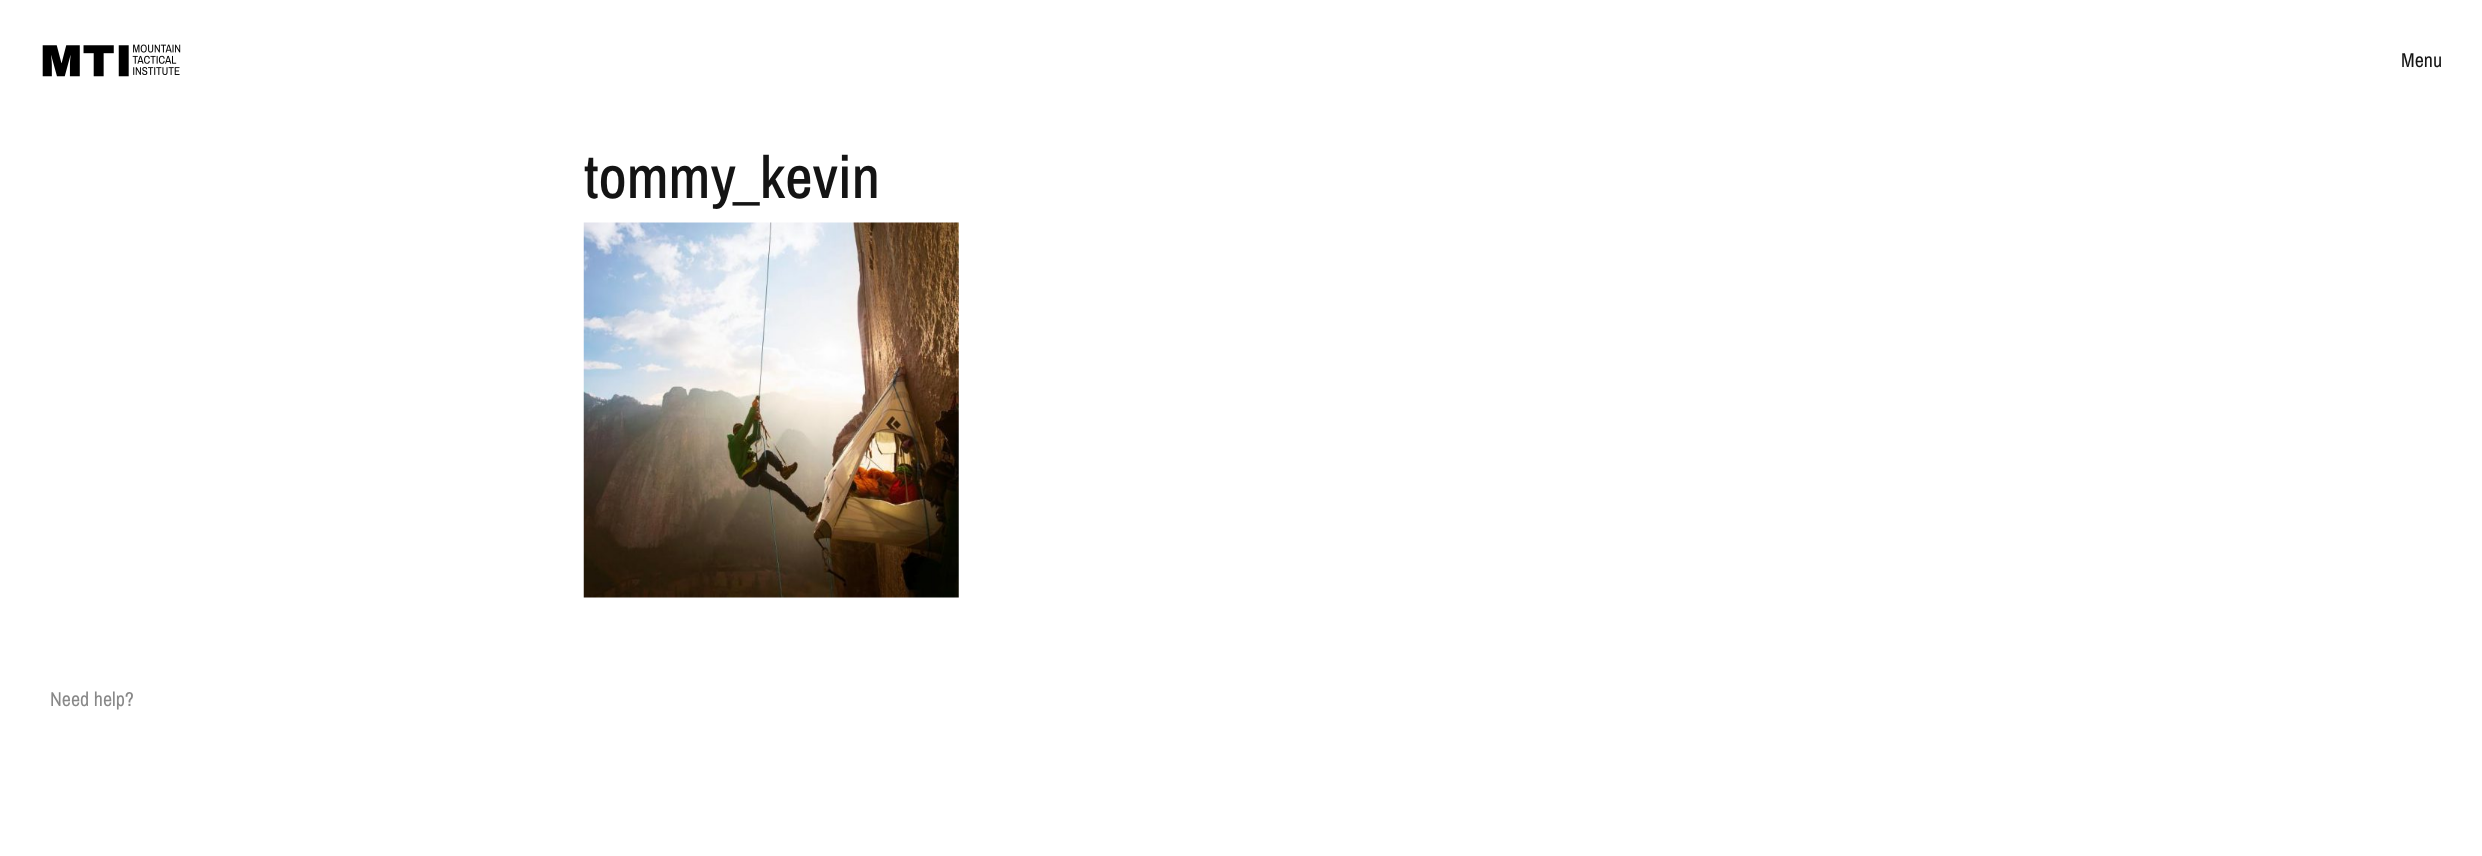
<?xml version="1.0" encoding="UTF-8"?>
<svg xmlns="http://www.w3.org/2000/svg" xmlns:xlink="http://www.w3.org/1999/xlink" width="2482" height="856">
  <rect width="100%" height="100%" fill="#ffffff" />
  <image x="42" y="44" width="139" height="33" xlink:href="image1.png" />
  <image x="583" y="222" width="376" height="376" xlink:href="image2.png" />
  <text x="2401" y="67" style="font-family: Archivo Narrow; font-size: 20px; fill: #141414">Menu</text>
  <text x="584" y="198" style="font-family: Archivo Narrow; font-size: 60px; font-weight: 500; fill: #141414">tommy_kevin</text>
  <text x="50" y="706" style="font-family: Archivo Narrow; font-size: 20px; fill: #888888">Need help?</text>
</svg>
